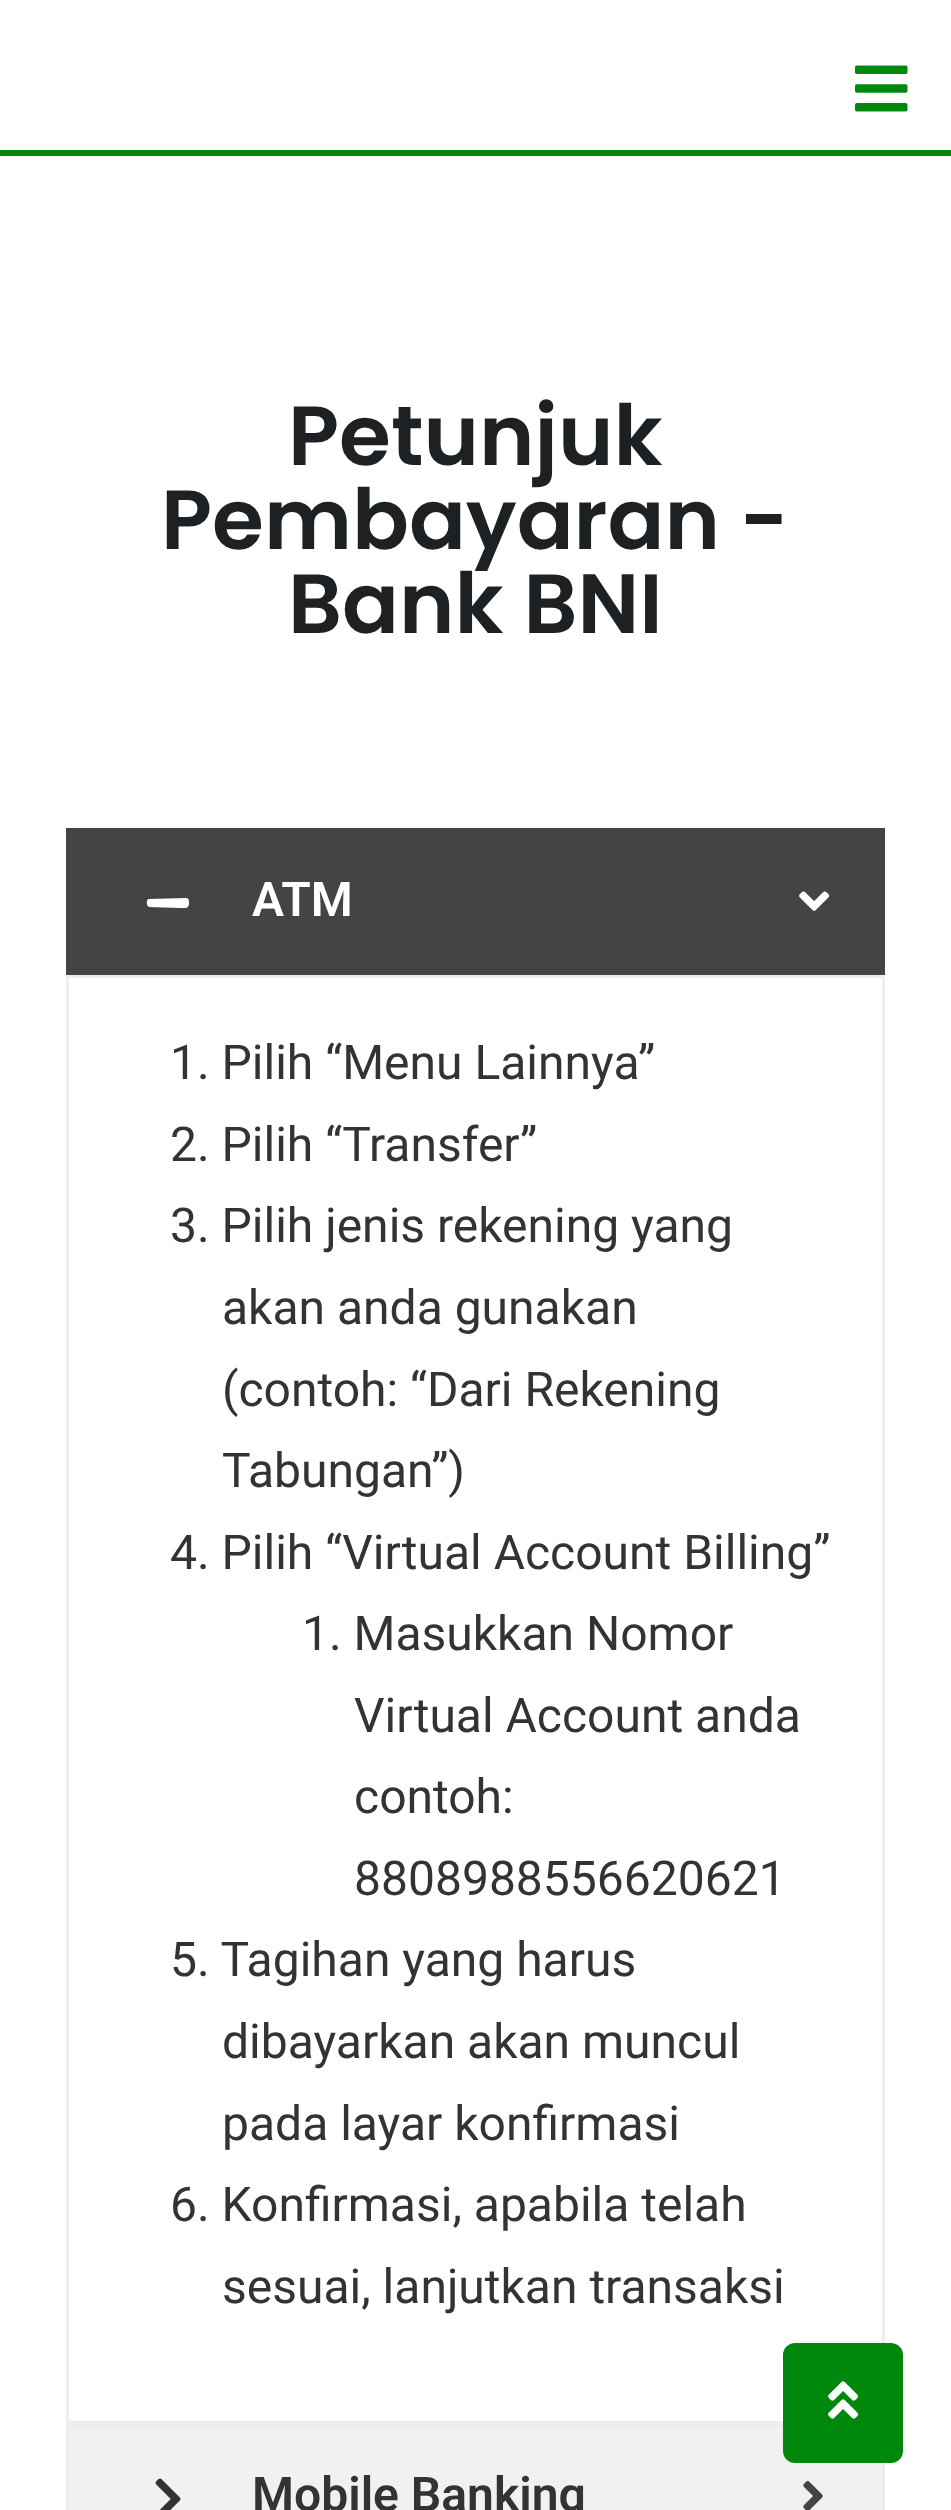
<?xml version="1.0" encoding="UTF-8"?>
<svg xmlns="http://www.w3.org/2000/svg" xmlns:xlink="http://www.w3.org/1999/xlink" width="951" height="2510">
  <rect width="100%" height="100%" fill="#ffffff" />
  <rect y="150" width="951" height="6" fill="#00880d" />
  <image x="855" y="65" width="53" height="47" xlink:href="image1.png" />
  <rect x="66" y="828" width="819" height="147" fill="#444444" />
  <path d="M 186 898 l -37 1 c -3 0 -3 7 0 8 l 31 1 c 5 0 9 1 9 -5 c 0 -2 0 -5 -3 -5 z" fill="#ffffff" />
  <image x="799" y="891" width="31" height="20" xlink:href="image2.png" />
  <rect x="67.5" y="976.5" width="816" height="1446" fill="none" stroke="#eeeeee" stroke-width="3" />
  <rect x="67.5" y="2425.5" width="816" height="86" fill="#f1f1f1" stroke="#ececec" stroke-width="3" />
  <image x="155" y="2478" width="26" height="32" xlink:href="image3.png" />
  <image x="803" y="2481" width="20" height="29" xlink:href="image4.png" />
  <rect x="783" y="2343" width="120" height="120" rx="12" fill="#00880d" />
  <image x="828" y="2381" width="31" height="38" xlink:href="image5.png" />
  <text x="288" y="465" style="font-family: Poppins; font-size: 84px; font-weight: 600; fill: #1d2124">Petunjuk</text>
  <text x="161" y="549" style="font-family: Poppins; font-size: 84px; font-weight: 600; fill: #1d2124">Pembayaran -</text>
  <text x="288" y="633" style="font-family: Poppins; font-size: 84px; font-weight: 600; fill: #1d2124">Bank BNI</text>
  <text x="252" y="916" style="font-family: Roboto; font-size: 48px; font-weight: 600; fill: #ffffff">ATM</text>
  <text x="170" y="1079" style="font-family: Roboto; font-size: 48px; fill: #333333">1. Pilih “Menu Lainnya”</text>
  <text x="170" y="1161" style="font-family: Roboto; font-size: 48px; fill: #333333">2. Pilih “Transfer”</text>
  <text x="170" y="1242" style="font-family: Roboto; font-size: 48px; fill: #333333">3. Pilih jenis rekening yang</text>
  <text x="222" y="1324" style="font-family: Roboto; font-size: 48px; fill: #333333">akan anda gunakan</text>
  <text x="222" y="1406" style="font-family: Roboto; font-size: 48px; fill: #333333">(contoh: “Dari Rekening</text>
  <text x="222" y="1487" style="font-family: Roboto; font-size: 48px; fill: #333333">Tabungan”)</text>
  <text x="170" y="1569" style="font-family: Roboto; font-size: 48px; fill: #333333">4. Pilih “Virtual Account Billing”</text>
  <text x="302" y="1650" style="font-family: Roboto; font-size: 48px; fill: #333333">1. Masukkan Nomor</text>
  <text x="354" y="1732" style="font-family: Roboto; font-size: 48px; fill: #333333">Virtual Account anda</text>
  <text x="354" y="1813" style="font-family: Roboto; font-size: 48px; fill: #333333">contoh:</text>
  <text x="354" y="1895" style="font-family: Roboto; font-size: 48px; fill: #333333">8808988556620621</text>
  <text x="170" y="1976" style="font-family: Roboto; font-size: 48px; fill: #333333">5. Tagihan yang harus</text>
  <text x="222" y="2058" style="font-family: Roboto; font-size: 48px; fill: #333333">dibayarkan akan muncul</text>
  <text x="222" y="2140" style="font-family: Roboto; font-size: 48px; fill: #333333">pada layar konfirmasi</text>
  <text x="170" y="2221" style="font-family: Roboto; font-size: 48px; fill: #333333">6. Konfirmasi, apabila telah</text>
  <text x="222" y="2303" style="font-family: Roboto; font-size: 48px; fill: #333333">sesuai, lanjutkan transaksi</text>
  <text x="252" y="2511" style="font-family: Roboto; font-size: 48px; font-weight: 600; fill: #333333">Mobile Banking</text>
</svg>
